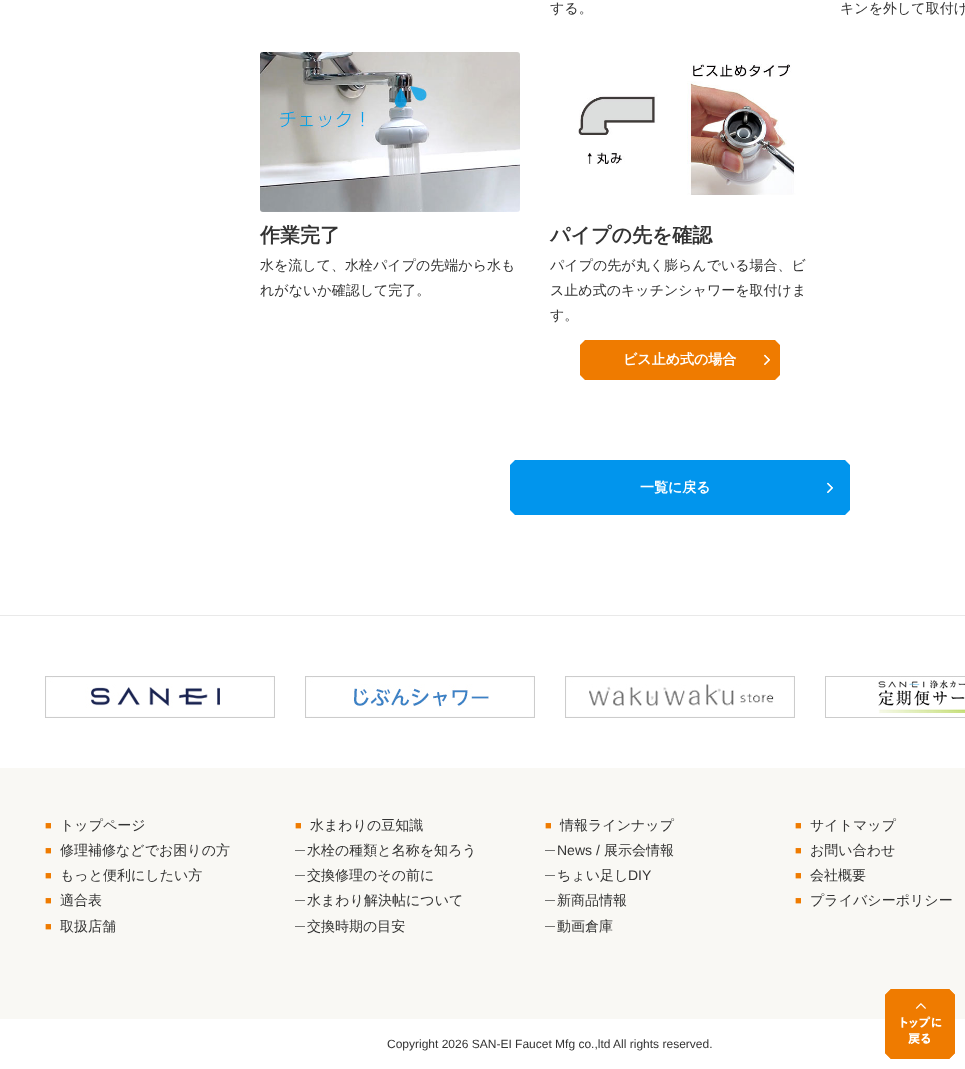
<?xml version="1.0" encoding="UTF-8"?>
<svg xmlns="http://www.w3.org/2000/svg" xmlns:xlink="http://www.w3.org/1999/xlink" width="965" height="1069">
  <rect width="100%" height="100%" fill="#ffffff" />
  <image x="260" y="52" width="260" height="160" xlink:href="image1.png" />
  <image x="578" y="64" width="218" height="131" xlink:href="image2.png" />
  <rect x="580" y="340" width="200" height="40" fill="#ef7b00" />
  <path d="M 580 340 h 5 l -5 5 z m 5 40 h -5 v -5 z" fill="#ffffff" />
  <image x="764" y="354" width="6" height="11" xlink:href="image3.png" />
  <path d="M 780 380 h -5 l 5 -5 z m -5 -40 h 5 v 5 z" fill="#ffffff" />
  <rect x="510" y="460" width="340" height="55" fill="#0195ed" />
  <path d="M 510 460 h 5 l -5 5 z m 5 55 h -5 v -5 z" fill="#ffffff" />
  <image x="827" y="482" width="6" height="11" xlink:href="image4.png" />
  <path d="M 850 515 h -5 l 5 -5 z m -5 -55 h 5 v 5 z" fill="#ffffff" />
  <rect y="615" width="965" height="1" fill="#e9e9e9" />
  <image x="45" y="676" width="230" height="42" xlink:href="image5.png" />
  <image x="305" y="676" width="230" height="42" xlink:href="image6.png" />
  <image x="565" y="676" width="230" height="42" xlink:href="image7.png" />
  <image x="825" y="676" width="140" height="42" xlink:href="image8.png" />
  <rect y="768" width="965" height="251" fill="#f9f8f4" />
  <image x="885" y="989" width="70" height="70" xlink:href="image9.png" />
  <text x="550" y="13" style="font-family: WenQuanYi Zen Hei; font-size: 14px; font-weight: 500; fill: #333333">する。</text>
  <text x="840" y="13" style="font-family: WenQuanYi Zen Hei; font-size: 14px; font-weight: 500; fill: #333333">キンを外して取付け</text>
  <text x="260" y="242" style="font-family: WenQuanYi Zen Hei; font-size: 20px; font-weight: bold; fill: #333333">作業完了</text>
  <text x="260" y="270" style="font-family: WenQuanYi Zen Hei; font-size: 14px; font-weight: 500; fill: #333333">水を流して、水栓パイプの先端から水も</text>
  <text x="260" y="295" style="font-family: WenQuanYi Zen Hei; font-size: 14px; font-weight: 500; fill: #333333">れがないか確認して完了。</text>
  <text x="550" y="242" style="font-family: WenQuanYi Zen Hei; font-size: 20px; font-weight: bold; fill: #333333">パイプの先を確認</text>
  <text x="550" y="270" style="font-family: WenQuanYi Zen Hei; font-size: 14px; font-weight: 500; fill: #333333">パイプの先が丸く膨らんでいる場合、ビ</text>
  <text x="550" y="295" style="font-family: WenQuanYi Zen Hei; font-size: 14px; font-weight: 500; fill: #333333">ス止め式のキッチンシャワーを取付けま</text>
  <text x="550" y="320" style="font-family: WenQuanYi Zen Hei; font-size: 14px; font-weight: 500; fill: #333333">す。</text>
  <text x="623" y="364" style="font-family: WenQuanYi Zen Hei; font-size: 14px; font-weight: bold; fill: #ffffff">ビス止め式の場合</text>
  <text x="640" y="492" style="font-family: WenQuanYi Zen Hei; font-size: 14px; font-weight: bold; fill: #ffffff">一覧に戻る</text>
  <text x="45" y="829" style="font-family: Liberation Sans; font-size: 11px; fill: #ef7b00">■</text>
  <text x="60" y="830" style="font-family: WenQuanYi Zen Hei; font-size: 14px; font-weight: 500; fill: #333333">トップページ</text>
  <text x="45" y="854" style="font-family: Liberation Sans; font-size: 11px; fill: #ef7b00">■</text>
  <text x="60" y="855" style="font-family: WenQuanYi Zen Hei; font-size: 14px; font-weight: 500; fill: #333333">修理補修などでお困りの方</text>
  <text x="45" y="879" style="font-family: Liberation Sans; font-size: 11px; fill: #ef7b00">■</text>
  <text x="60" y="880" style="font-family: WenQuanYi Zen Hei; font-size: 14px; font-weight: 500; fill: #333333">もっと便利にしたい方</text>
  <text x="45" y="904" style="font-family: Liberation Sans; font-size: 11px; fill: #ef7b00">■</text>
  <text x="60" y="905" style="font-family: WenQuanYi Zen Hei; font-size: 14px; font-weight: 500; fill: #333333">適合表</text>
  <text x="45" y="930" style="font-family: Liberation Sans; font-size: 11px; fill: #ef7b00">■</text>
  <text x="60" y="931" style="font-family: WenQuanYi Zen Hei; font-size: 14px; font-weight: 500; fill: #333333">取扱店舗</text>
  <text x="295" y="829" style="font-family: Liberation Sans; font-size: 11px; fill: #ef7b00">■</text>
  <text x="310" y="830" style="font-family: WenQuanYi Zen Hei; font-size: 14px; font-weight: 500; fill: #333333">水まわりの豆知識</text>
  <text x="295" y="853" style="font-family: Liberation Sans; font-size: 10px; fill: #333333">―</text>
  <text x="307" y="855" style="font-family: WenQuanYi Zen Hei; font-size: 14px; font-weight: 500; fill: #333333">水栓の種類と名称を知ろう</text>
  <text x="295" y="878" style="font-family: Liberation Sans; font-size: 10px; fill: #333333">―</text>
  <text x="307" y="880" style="font-family: WenQuanYi Zen Hei; font-size: 14px; font-weight: 500; fill: #333333">交換修理のその前に</text>
  <text x="295" y="903" style="font-family: Liberation Sans; font-size: 10px; fill: #333333">―</text>
  <text x="307" y="905" style="font-family: WenQuanYi Zen Hei; font-size: 14px; font-weight: 500; fill: #333333">水まわり解決帖について</text>
  <text x="295" y="929" style="font-family: Liberation Sans; font-size: 10px; fill: #333333">―</text>
  <text x="307" y="931" style="font-family: WenQuanYi Zen Hei; font-size: 14px; font-weight: 500; fill: #333333">交換時期の目安</text>
  <text x="545" y="829" style="font-family: Liberation Sans; font-size: 11px; fill: #ef7b00">■</text>
  <text x="560" y="830" style="font-family: WenQuanYi Zen Hei; font-size: 14px; font-weight: 500; fill: #333333">情報ラインナップ</text>
  <text x="545" y="853" style="font-family: Liberation Sans; font-size: 10px; fill: #333333">―</text>
  <text x="557" y="855" style="font-family: Liberation Sans; font-size: 14px; fill: #333333">News /</text>
  <text x="604" y="855" style="font-family: WenQuanYi Zen Hei; font-size: 14px; font-weight: 500; fill: #333333">展示会情報</text>
  <text x="545" y="878" style="font-family: Liberation Sans; font-size: 10px; fill: #333333">―</text>
  <text x="557" y="880" style="font-family: WenQuanYi Zen Hei; font-size: 14px; font-weight: 500; fill: #333333">ちょい足し</text>
  <text x="628" y="880" style="font-family: Liberation Sans; font-size: 14px; fill: #333333">DIY</text>
  <text x="545" y="903" style="font-family: Liberation Sans; font-size: 10px; fill: #333333">―</text>
  <text x="557" y="905" style="font-family: WenQuanYi Zen Hei; font-size: 14px; font-weight: 500; fill: #333333">新商品情報</text>
  <text x="545" y="929" style="font-family: Liberation Sans; font-size: 10px; fill: #333333">―</text>
  <text x="557" y="931" style="font-family: WenQuanYi Zen Hei; font-size: 14px; font-weight: 500; fill: #333333">動画倉庫</text>
  <text x="795" y="829" style="font-family: Liberation Sans; font-size: 11px; fill: #ef7b00">■</text>
  <text x="810" y="830" style="font-family: WenQuanYi Zen Hei; font-size: 14px; font-weight: 500; fill: #333333">サイトマップ</text>
  <text x="795" y="854" style="font-family: Liberation Sans; font-size: 11px; fill: #ef7b00">■</text>
  <text x="810" y="855" style="font-family: WenQuanYi Zen Hei; font-size: 14px; font-weight: 500; fill: #333333">お問い合わせ</text>
  <text x="795" y="879" style="font-family: Liberation Sans; font-size: 11px; fill: #ef7b00">■</text>
  <text x="810" y="880" style="font-family: WenQuanYi Zen Hei; font-size: 14px; font-weight: 500; fill: #333333">会社概要</text>
  <text x="795" y="904" style="font-family: Liberation Sans; font-size: 11px; fill: #ef7b00">■</text>
  <text x="810" y="905" style="font-family: WenQuanYi Zen Hei; font-size: 14px; font-weight: 500; fill: #333333">プライバシーポリシー</text>
  <text x="387" y="1048" style="font-family: Liberation Sans; font-size: 12px; fill: #333333">Copyright 2026 SAN-EI Faucet Mfg co.,ltd All rights reserved.</text>
</svg>
